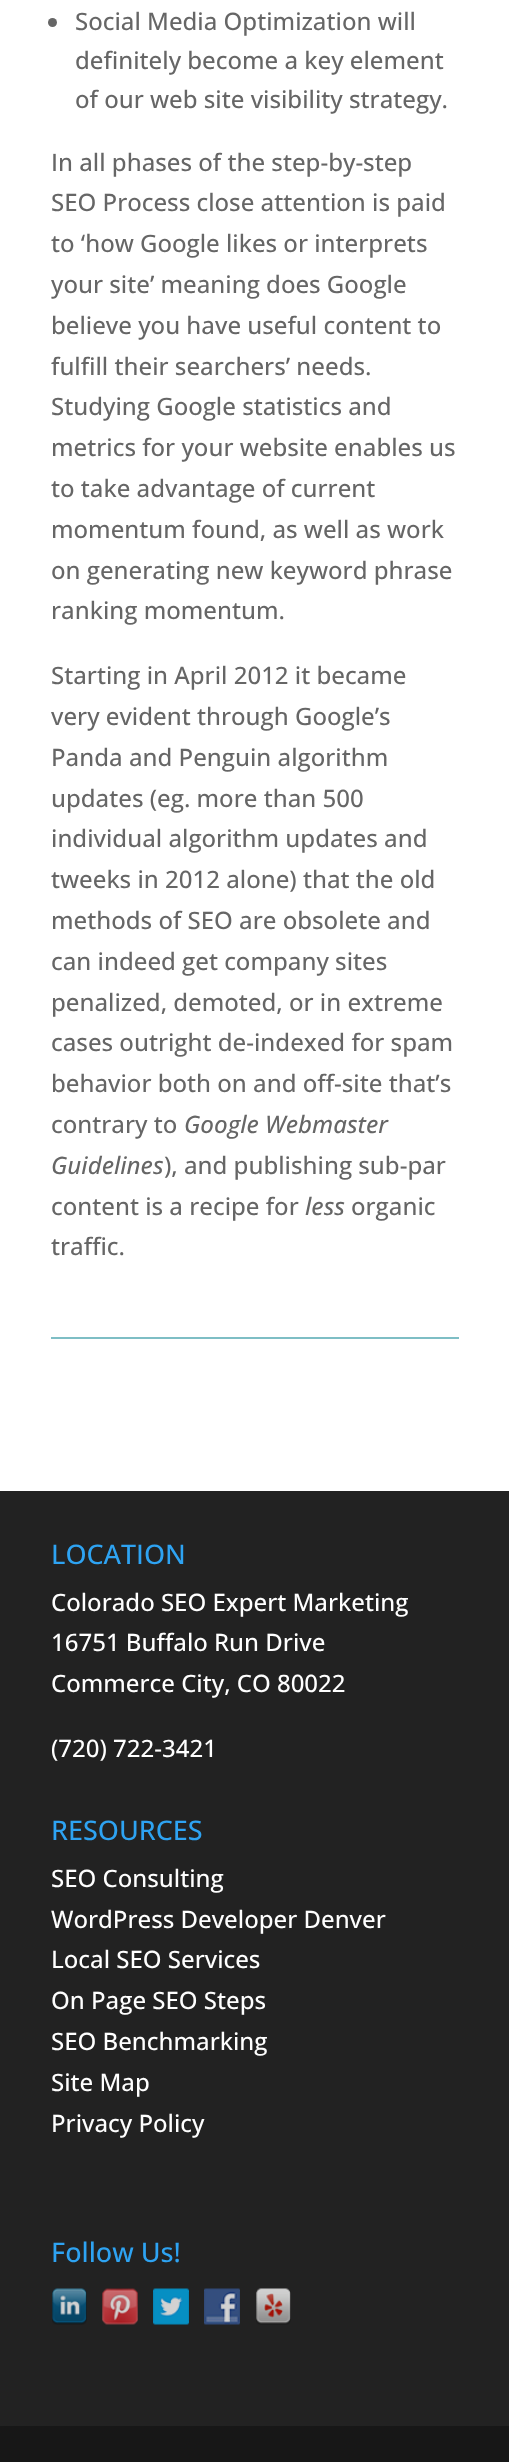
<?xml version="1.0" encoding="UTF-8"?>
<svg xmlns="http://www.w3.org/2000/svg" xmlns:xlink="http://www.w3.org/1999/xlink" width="509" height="2462">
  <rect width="100%" height="100%" fill="#ffffff" />
  <circle cx="52.5" cy="22.5" r="4.5" fill="#666666" />
  <rect x="51" y="1337" width="408" height="2" fill="#7ebec5" />
  <rect y="1491" width="509" height="935" fill="#222222" />
  <image x="52" y="2288" width="35" height="37" xlink:href="image1.png" />
  <image x="102" y="2288" width="36" height="37" xlink:href="image2.png" />
  <image x="153" y="2288" width="36" height="37" xlink:href="image3.png" />
  <image x="204" y="2288" width="36" height="37" xlink:href="image4.png" />
  <image x="256" y="2288" width="35" height="37" xlink:href="image5.png" />
  <rect y="2426" width="509" height="36" fill="#171717" />
  <text x="75" y="30" style="font-family: Open Sans; font-size: 24px; font-weight: 500; fill: #666666">Social Media Optimization will</text>
  <text x="75" y="69" style="font-family: Open Sans; font-size: 24px; font-weight: 500; fill: #666666">definitely become a key element</text>
  <text x="75" y="108" style="font-family: Open Sans; font-size: 24px; font-weight: 500; fill: #666666">of our web site visibility strategy.</text>
  <text x="51" y="171" style="font-family: Open Sans; font-size: 24px; font-weight: 500; fill: #666666">In all phases of the step-by-step</text>
  <text x="51" y="211" style="font-family: Open Sans; font-size: 24px; font-weight: 500; fill: #666666">SEO Process close attention is paid</text>
  <text x="51" y="252" style="font-family: Open Sans; font-size: 24px; font-weight: 500; fill: #666666">to ‘how Google likes or interprets</text>
  <text x="51" y="293" style="font-family: Open Sans; font-size: 24px; font-weight: 500; fill: #666666">your site’ meaning does Google</text>
  <text x="51" y="334" style="font-family: Open Sans; font-size: 24px; font-weight: 500; fill: #666666">believe you have useful content to</text>
  <text x="51" y="375" style="font-family: Open Sans; font-size: 24px; font-weight: 500; fill: #666666">fulfill their searchers’ needs.</text>
  <text x="51" y="415" style="font-family: Open Sans; font-size: 24px; font-weight: 500; fill: #666666">Studying Google statistics and</text>
  <text x="51" y="456" style="font-family: Open Sans; font-size: 24px; font-weight: 500; fill: #666666">metrics for your website enables us</text>
  <text x="51" y="497" style="font-family: Open Sans; font-size: 24px; font-weight: 500; fill: #666666">to take advantage of current</text>
  <text x="51" y="538" style="font-family: Open Sans; font-size: 24px; font-weight: 500; fill: #666666">momentum found, as well as work</text>
  <text x="51" y="579" style="font-family: Open Sans; font-size: 24px; font-weight: 500; fill: #666666">on generating new keyword phrase</text>
  <text x="51" y="619" style="font-family: Open Sans; font-size: 24px; font-weight: 500; fill: #666666">ranking momentum.</text>
  <text x="51" y="684" style="font-family: Open Sans; font-size: 24px; font-weight: 500; fill: #666666">Starting in April 2012 it became</text>
  <text x="51" y="725" style="font-family: Open Sans; font-size: 24px; font-weight: 500; fill: #666666">very evident through Google’s</text>
  <text x="51" y="766" style="font-family: Open Sans; font-size: 24px; font-weight: 500; fill: #666666">Panda and Penguin algorithm</text>
  <text x="51" y="807" style="font-family: Open Sans; font-size: 24px; font-weight: 500; fill: #666666">updates (eg. more than 500</text>
  <text x="51" y="847" style="font-family: Open Sans; font-size: 24px; font-weight: 500; fill: #666666">individual algorithm updates and</text>
  <text x="51" y="888" style="font-family: Open Sans; font-size: 24px; font-weight: 500; fill: #666666">tweeks in 2012 alone) that the old</text>
  <text x="51" y="929" style="font-family: Open Sans; font-size: 24px; font-weight: 500; fill: #666666">methods of SEO are obsolete and</text>
  <text x="51" y="970" style="font-family: Open Sans; font-size: 24px; font-weight: 500; fill: #666666">can indeed get company sites</text>
  <text x="51" y="1011" style="font-family: Open Sans; font-size: 24px; font-weight: 500; fill: #666666">penalized, demoted, or in extreme</text>
  <text x="51" y="1051" style="font-family: Open Sans; font-size: 24px; font-weight: 500; fill: #666666">cases outright de-indexed for spam</text>
  <text x="51" y="1092" style="font-family: Open Sans; font-size: 24px; font-weight: 500; fill: #666666">behavior both on and off-site that’s</text>
  <text x="51" y="1133" style="font-family: Open Sans; font-size: 24px; font-weight: 500; fill: #666666">contrary to</text>
  <text x="184" y="1133" style="font-family: Open Sans; font-size: 24px; font-weight: 500; font-style: italic; fill: #666666">Google Webmaster</text>
  <text x="51" y="1174" style="font-family: Open Sans; font-size: 24px; font-weight: 500; font-style: italic; fill: #666666">Guidelines</text>
  <text x="164" y="1174" style="font-family: Open Sans; font-size: 24px; font-weight: 500; fill: #666666">), and publishing sub-par</text>
  <text x="51" y="1215" style="font-family: Open Sans; font-size: 24px; font-weight: 500; fill: #666666">content is a recipe for</text>
  <text x="305" y="1215" style="font-family: Open Sans; font-size: 24px; font-weight: 500; font-style: italic; fill: #666666">less</text>
  <text x="351" y="1215" style="font-family: Open Sans; font-size: 24px; font-weight: 500; fill: #666666">organic</text>
  <text x="51" y="1255" style="font-family: Open Sans; font-size: 24px; font-weight: 500; fill: #666666">traffic.</text>
  <text x="51" y="1564" style="font-family: Open Sans; font-size: 27px; font-weight: 500; fill: #2ea3f2">LOCATION</text>
  <text x="51" y="1611" style="font-family: Open Sans; font-size: 24px; font-weight: 500; fill: #ffffff">Colorado SEO Expert Marketing</text>
  <text x="51" y="1651" style="font-family: Open Sans; font-size: 24px; font-weight: 500; fill: #ffffff">16751 Buffalo Run Drive</text>
  <text x="51" y="1692" style="font-family: Open Sans; font-size: 24px; font-weight: 500; fill: #ffffff">Commerce City, CO 80022</text>
  <text x="51" y="1757" style="font-family: Open Sans; font-size: 24px; font-weight: 500; fill: #ffffff">(720) 722-3421</text>
  <text x="51" y="1840" style="font-family: Open Sans; font-size: 27px; font-weight: 500; fill: #2ea3f2">RESOURCES</text>
  <text x="51" y="1887" style="font-family: Open Sans; font-size: 24px; font-weight: 500; fill: #ffffff">SEO Consulting</text>
  <text x="51" y="1928" style="font-family: Open Sans; font-size: 24px; font-weight: 500; fill: #ffffff">WordPress Developer Denver</text>
  <text x="51" y="1968" style="font-family: Open Sans; font-size: 24px; font-weight: 500; fill: #ffffff">Local SEO Services</text>
  <text x="51" y="2009" style="font-family: Open Sans; font-size: 24px; font-weight: 500; fill: #ffffff">On Page SEO Steps</text>
  <text x="51" y="2050" style="font-family: Open Sans; font-size: 24px; font-weight: 500; fill: #ffffff">SEO Benchmarking</text>
  <text x="51" y="2091" style="font-family: Open Sans; font-size: 24px; font-weight: 500; fill: #ffffff">Site Map</text>
  <text x="51" y="2132" style="font-family: Open Sans; font-size: 24px; font-weight: 500; fill: #ffffff">Privacy Policy</text>
  <text x="51" y="2262" style="font-family: Open Sans; font-size: 27px; font-weight: 500; fill: #2ea3f2">Follow Us!</text>
</svg>
